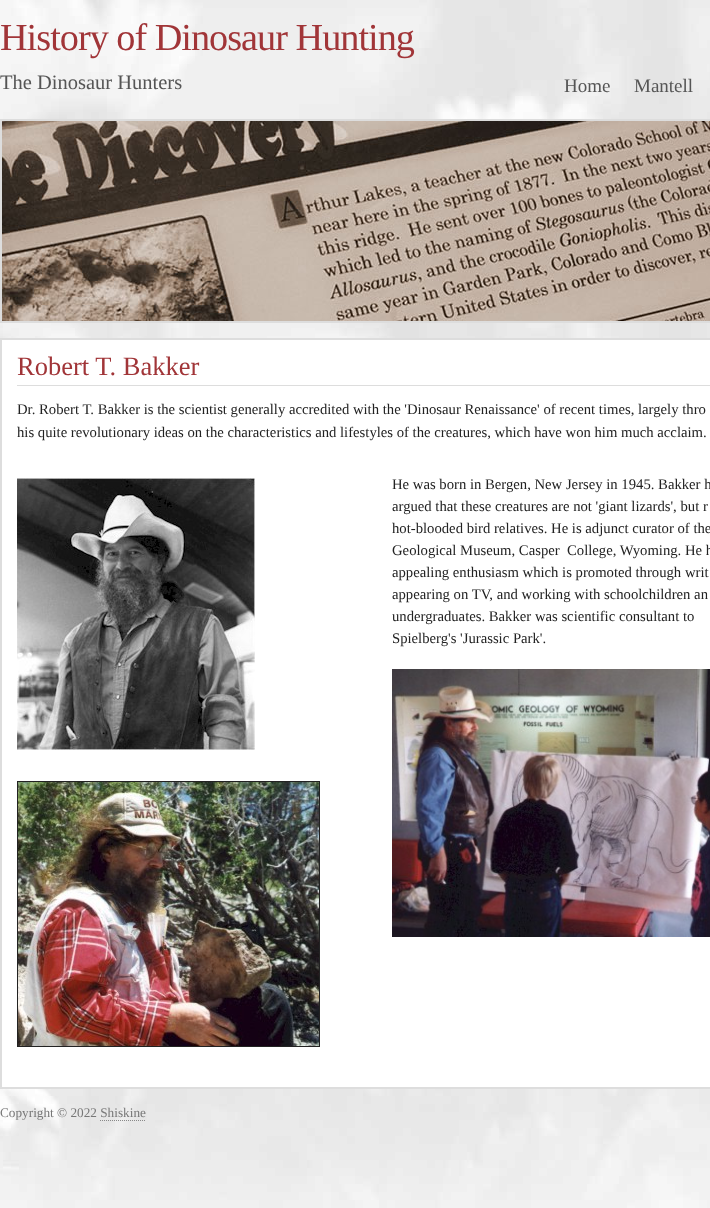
<?xml version="1.0" encoding="UTF-8"?>
<svg xmlns="http://www.w3.org/2000/svg" xmlns:xlink="http://www.w3.org/1999/xlink" width="710" height="1208">
  <rect width="100%" height="100%" fill="#ffffff" />
  <image x="0" y="0" width="710" height="1208" xlink:href="image1.png" />
  <rect x="1" y="120" width="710" height="202" fill="none" stroke="#dddddd" stroke-width="2" />
  <image x="2" y="121" width="708" height="200" xlink:href="image2.png" />
  <rect x="1" y="339" width="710" height="749" fill="#ffffff" stroke="#dddddd" stroke-width="2" />
  <rect x="17" y="385" width="693" height="1" fill="#dddddd" />
  <image x="17" y="478" width="238" height="272" xlink:href="image3.png" />
  <rect x="17.5" y="781.5" width="302" height="265" fill="none" stroke="#222222" />
  <image x="18" y="782" width="301" height="264" xlink:href="image4.png" />
  <image x="392" y="669" width="318" height="268" xlink:href="image5.png" />
  <path d="M 100 1120.5 h 46" fill="none" stroke="#888888" stroke-dasharray="1 1" />
  <text x="0" y="50" style="font-family: Liberation Serif; font-size: 38.25px; letter-spacing: -1px; fill: #a13538">History of Dinosaur Hunting</text>
  <text x="0" y="89" style="font-family: Liberation Serif; font-size: 20.5px; fill: #555555">The Dinosaur Hunters</text>
  <text x="564" y="92" style="font-family: Liberation Serif; font-size: 19px; fill: #555555">Home</text>
  <text x="634" y="92" style="font-family: Liberation Serif; font-size: 19px; fill: #555555">Mantell</text>
  <text x="17" y="375" style="font-family: Liberation Serif; font-size: 26.5px; fill: #a13538">Robert T. Bakker</text>
  <text x="17" y="414" style="font-family: Liberation Serif; font-size: 14.7px; fill: #222222">Dr. Robert T. Bakker is the scientist generally accredited with the 'Dinosaur Renaissance' of recent times, largely thro</text>
  <text x="17" y="437" style="font-family: Liberation Serif; font-size: 14.7px; fill: #222222">his quite revolutionary ideas on the characteristics and lifestyles of the creatures, which have won him much acclaim.</text>
  <text x="392" y="489" style="font-family: Liberation Serif; font-size: 14.7px; fill: #222222">He was born in Bergen, New Jersey in 1945. Bakker h</text>
  <text x="392" y="511" style="font-family: Liberation Serif; font-size: 14.7px; fill: #222222">argued that these creatures are not 'giant lizards', but r</text>
  <text x="392" y="533" style="font-family: Liberation Serif; font-size: 14.7px; fill: #222222">hot-blooded bird relatives. He is adjunct curator of the</text>
  <text x="392" y="555" style="font-family: Liberation Serif; font-size: 14.7px; fill: #222222" xml:space="preserve">Geological Museum, Casper  College, Wyoming. He h</text>
  <text x="392" y="577" style="font-family: Liberation Serif; font-size: 14.7px; fill: #222222">appealing enthusiasm which is promoted through writ</text>
  <text x="392" y="599" style="font-family: Liberation Serif; font-size: 14.7px; fill: #222222">appearing on TV, and working with schoolchildren an</text>
  <text x="392" y="621" style="font-family: Liberation Serif; font-size: 14.7px; fill: #222222">undergraduates. Bakker was scientific consultant to</text>
  <text x="392" y="643" style="font-family: Liberation Serif; font-size: 14.7px; fill: #222222">Spielberg's 'Jurassic Park'.</text>
  <text x="0" y="1117" style="font-family: Liberation Serif; font-size: 13.25px; fill: #777777">Copyright © 2022 Shiskine</text>
</svg>
